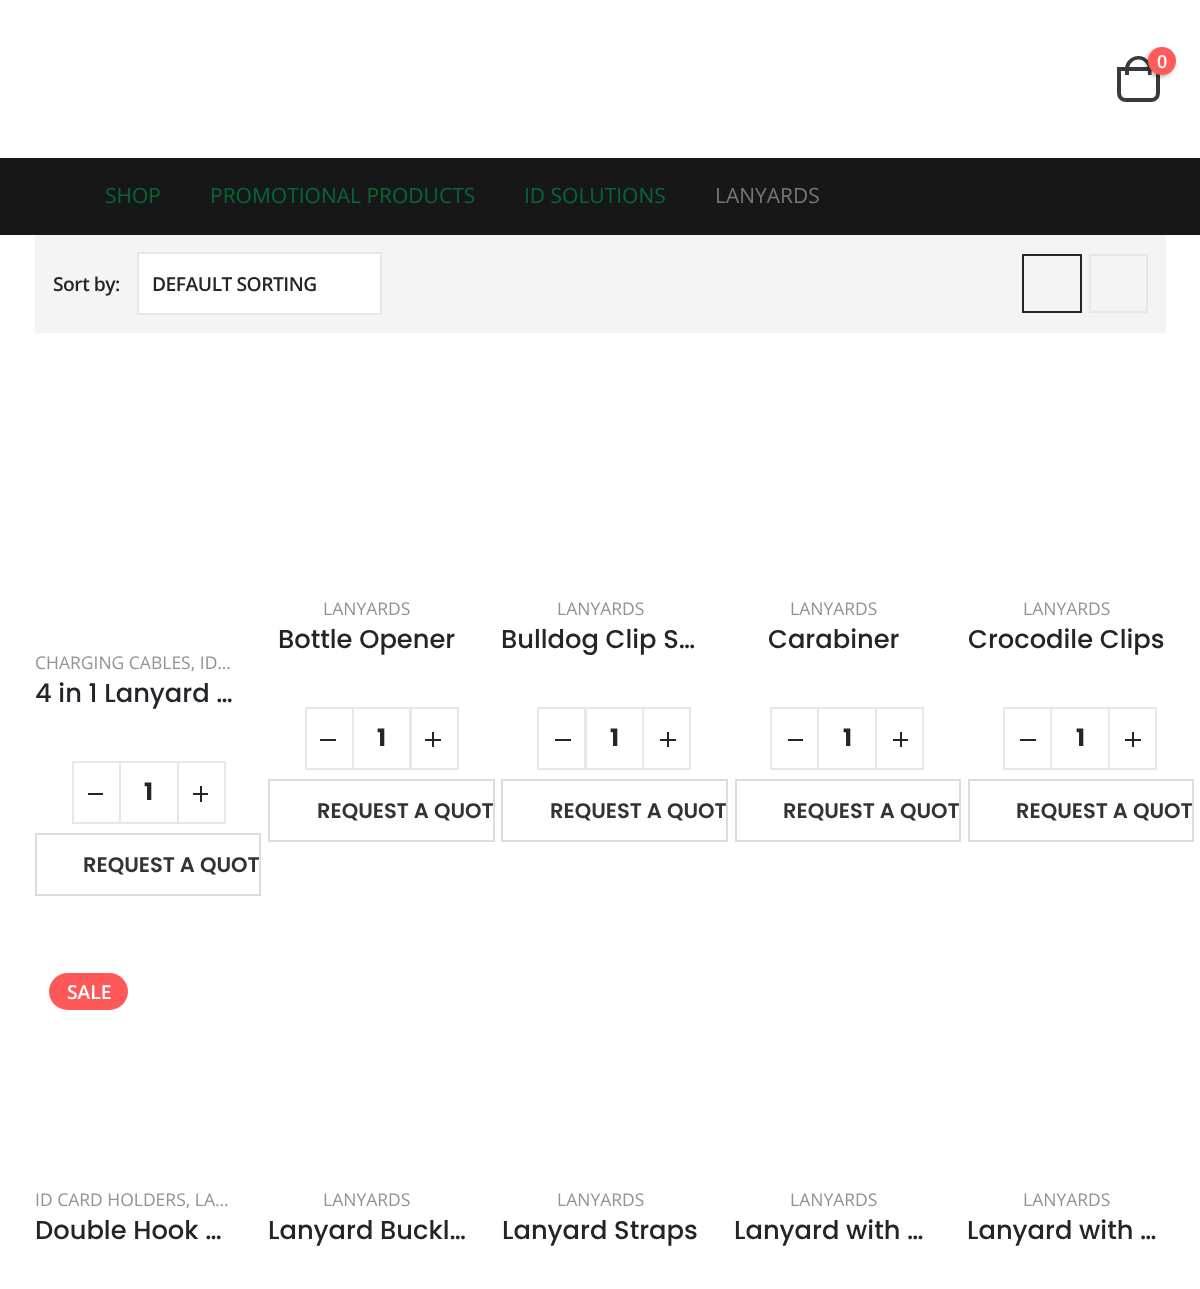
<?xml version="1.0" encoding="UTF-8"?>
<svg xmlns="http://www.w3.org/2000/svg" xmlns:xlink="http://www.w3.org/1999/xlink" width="1200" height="1289">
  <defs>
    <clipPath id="clip1"><rect x="37" y="835" width="222" height="59" /></clipPath>
  </defs>
  <rect width="100%" height="100%" fill="#ffffff" />
  <path d="M 1119 69 h 39 v 24 c 0 4 -3 7 -7 7 h -25 c -4 0 -7 -3 -7 -7 z" fill="none" stroke="#383b3e" stroke-width="4" />
  <path d="M 1138.5 56 c 7 0 13 6 13 13 v 6 h -26.5 v -6 c 0 -7 6 -13 13.5 -13 z m 0 3.5 c 5 0 9.5 4.5 9.5 9.5 v 6 h -19 v -6 c 0 -5 4 -9.5 9.5 -9.5 z" fill="#383b3e" fill-rule="evenodd" />
  <rect x="1146" y="49" width="28" height="28" rx="14" fill="#000000" fill-opacity="0.3" filter="blur(2px)" />
  <circle cx="1162" cy="61" r="14" fill="#ff5b5b" />
  <rect y="158" width="1200" height="77" fill="#171717" />
  <rect x="35" y="235" width="1131" height="98" fill="#f4f4f4" />
  <rect x="138" y="253" width="243" height="61" fill="#ffffff" stroke="#e7e7e7" stroke-width="2" />
  <rect x="1023" y="255" width="58" height="57" fill="none" stroke="#222529" stroke-width="2" />
  <rect x="1090" y="255" width="57" height="57" fill="none" stroke="#e7e7e7" stroke-width="2" />
  <rect x="120" y="762" width="58" height="61" fill="none" stroke="#e7e7e7" stroke-width="2" />
  <rect x="73" y="762" width="47" height="61" fill="none" stroke="#e7e7e7" stroke-width="2" />
  <rect x="88" y="793" width="15" height="2" fill="#222529" />
  <rect x="178" y="762" width="47" height="61" fill="none" stroke="#e7e7e7" stroke-width="2" />
  <rect x="193" y="793" width="15" height="2" fill="#222529" />
  <rect x="200" y="786" width="2" height="16" fill="#222529" />
  <rect x="36" y="834" width="224" height="61" fill="none" stroke="#dddddd" stroke-width="2" />
  <rect x="353" y="708" width="57" height="61" fill="none" stroke="#e7e7e7" stroke-width="2" />
  <rect x="306" y="708" width="47" height="61" fill="none" stroke="#e7e7e7" stroke-width="2" />
  <rect x="320" y="739" width="16" height="2" fill="#222529" />
  <rect x="411" y="708" width="47" height="61" fill="none" stroke="#e7e7e7" stroke-width="2" />
  <rect x="425" y="739" width="16" height="2" fill="#222529" />
  <rect x="432" y="732" width="2" height="15" fill="#222529" />
  <rect x="269" y="780" width="225" height="61" fill="none" stroke="#dddddd" stroke-width="2" />
  <rect x="586" y="708" width="57" height="61" fill="none" stroke="#e7e7e7" stroke-width="2" />
  <rect x="538" y="708" width="47" height="61" fill="none" stroke="#e7e7e7" stroke-width="2" />
  <rect x="555" y="739" width="16" height="2" fill="#222529" />
  <rect x="643" y="708" width="47" height="61" fill="none" stroke="#e7e7e7" stroke-width="2" />
  <rect x="660" y="739" width="16" height="2" fill="#222529" />
  <rect x="667" y="732" width="2" height="15" fill="#222529" />
  <rect x="502" y="780" width="225" height="61" fill="none" stroke="#dddddd" stroke-width="2" />
  <rect x="818" y="708" width="58" height="61" fill="none" stroke="#e7e7e7" stroke-width="2" />
  <rect x="771" y="708" width="47" height="61" fill="none" stroke="#e7e7e7" stroke-width="2" />
  <rect x="788" y="739" width="15" height="2" fill="#222529" />
  <rect x="876" y="708" width="47" height="61" fill="none" stroke="#e7e7e7" stroke-width="2" />
  <rect x="893" y="739" width="15" height="2" fill="#222529" />
  <rect x="900" y="732" width="2" height="15" fill="#222529" />
  <rect x="736" y="780" width="224" height="61" fill="none" stroke="#dddddd" stroke-width="2" />
  <rect x="1051" y="708" width="58" height="61" fill="none" stroke="#e7e7e7" stroke-width="2" />
  <rect x="1004" y="708" width="47" height="61" fill="none" stroke="#e7e7e7" stroke-width="2" />
  <rect x="1020" y="739" width="16" height="2" fill="#222529" />
  <rect x="1109" y="708" width="47" height="61" fill="none" stroke="#e7e7e7" stroke-width="2" />
  <rect x="1125" y="739" width="16" height="2" fill="#222529" />
  <rect x="1132" y="732" width="2" height="15" fill="#222529" />
  <rect x="969" y="780" width="224" height="61" fill="none" stroke="#dddddd" stroke-width="2" />
  <rect x="49" y="973" width="79" height="37" rx="18.5" fill="#fe5858" />
  <text x="1157" y="68" style="font-family: Open Sans; font-size: 18px; font-weight: 600; fill: #ffffff">0</text>
  <text x="105" y="203" style="font-family: Open Sans; font-size: 21px; fill: #046938">SHOP</text>
  <text x="210" y="203" style="font-family: Open Sans; font-size: 21px; fill: #046938">PROMOTIONAL PRODUCTS</text>
  <text x="524" y="203" style="font-family: Open Sans; font-size: 21px; fill: #046938">ID SOLUTIONS</text>
  <text x="715" y="203" style="font-family: Open Sans; font-size: 21px; fill: #777777">LANYARDS</text>
  <text x="53" y="291" style="font-family: Open Sans; font-size: 19.25px; font-weight: 600; letter-spacing: -0.5px; fill: #222529">Sort by:</text>
  <text x="152" y="291" style="font-family: Open Sans; font-size: 19.25px; font-weight: 600; letter-spacing: -0.5px; fill: #222529">DEFAULT SORTING</text>
  <text x="35" y="669" style="font-family: Open Sans; font-size: 17.5px; fill: #929292">CHARGING CABLES, ID…</text>
  <text x="35" y="702" style="font-family: Poppins; font-size: 25.75px; font-weight: 500; fill: #222529">4 in 1 Lanyard …</text>
  <text x="144" y="800" style="font-family: Poppins; font-size: 24px; font-weight: bold; fill: #222529">1</text>
  <g clip-path="url(#clip1)">
    <text x="83" y="872" style="font-family: Poppins; font-size: 21px; font-weight: 600; fill: #333333">REQUEST A QUOT</text>
  </g>
  <text x="323" y="615" style="font-family: Open Sans; font-size: 17.5px; fill: #929292">LANYARDS</text>
  <text x="278" y="648" style="font-family: Poppins; font-size: 25.75px; font-weight: 500; fill: #222529">Bottle Opener</text>
  <text x="377" y="746" style="font-family: Poppins; font-size: 24px; font-weight: bold; fill: #222529">1</text>
  <text x="317" y="818" style="font-family: Poppins; font-size: 21px; font-weight: 600; fill: #333333">REQUEST A QUOT</text>
  <text x="557" y="615" style="font-family: Open Sans; font-size: 17.5px; fill: #929292">LANYARDS</text>
  <text x="501" y="648" style="font-family: Poppins; font-size: 25.75px; font-weight: 500; fill: #222529">Bulldog Clip S…</text>
  <text x="610" y="746" style="font-family: Poppins; font-size: 24px; font-weight: bold; fill: #222529">1</text>
  <text x="550" y="818" style="font-family: Poppins; font-size: 21px; font-weight: 600; fill: #333333">REQUEST A QUOT</text>
  <text x="790" y="615" style="font-family: Open Sans; font-size: 17.5px; fill: #929292">LANYARDS</text>
  <text x="768" y="648" style="font-family: Poppins; font-size: 25.75px; font-weight: 500; fill: #222529">Carabiner</text>
  <text x="843" y="746" style="font-family: Poppins; font-size: 24px; font-weight: bold; fill: #222529">1</text>
  <text x="783" y="818" style="font-family: Poppins; font-size: 21px; font-weight: 600; fill: #333333">REQUEST A QUOT</text>
  <text x="1023" y="615" style="font-family: Open Sans; font-size: 17.5px; fill: #929292">LANYARDS</text>
  <text x="968" y="648" style="font-family: Poppins; font-size: 25.75px; font-weight: 500; fill: #222529">Crocodile Clips</text>
  <text x="1076" y="746" style="font-family: Poppins; font-size: 24px; font-weight: bold; fill: #222529">1</text>
  <text x="1016" y="818" style="font-family: Poppins; font-size: 21px; font-weight: 600; fill: #333333">REQUEST A QUOT</text>
  <text x="67" y="999" style="font-family: Open Sans; font-size: 19.25px; font-weight: 600; fill: #ffffff">SALE</text>
  <text x="35" y="1206" style="font-family: Open Sans; font-size: 17.5px; fill: #929292">ID CARD HOLDERS, LA…</text>
  <text x="35" y="1239" style="font-family: Poppins; font-size: 25.75px; font-weight: 500; fill: #222529">Double Hook …</text>
  <text x="323" y="1206" style="font-family: Open Sans; font-size: 17.5px; fill: #929292">LANYARDS</text>
  <text x="268" y="1239" style="font-family: Poppins; font-size: 25.75px; font-weight: 500; fill: #222529">Lanyard Buckl…</text>
  <text x="557" y="1206" style="font-family: Open Sans; font-size: 17.5px; fill: #929292">LANYARDS</text>
  <text x="502" y="1239" style="font-family: Poppins; font-size: 25.75px; font-weight: 500; fill: #222529">Lanyard Straps</text>
  <text x="790" y="1206" style="font-family: Open Sans; font-size: 17.5px; fill: #929292">LANYARDS</text>
  <text x="734" y="1239" style="font-family: Poppins; font-size: 25.75px; font-weight: 500; fill: #222529">Lanyard with …</text>
  <text x="1023" y="1206" style="font-family: Open Sans; font-size: 17.5px; fill: #929292">LANYARDS</text>
  <text x="967" y="1239" style="font-family: Poppins; font-size: 25.75px; font-weight: 500; fill: #222529">Lanyard with …</text>
</svg>
